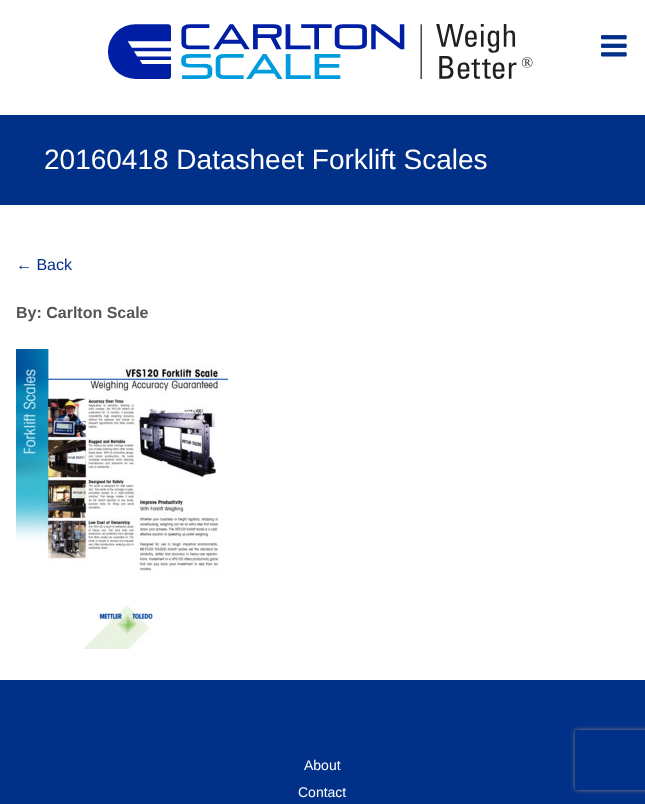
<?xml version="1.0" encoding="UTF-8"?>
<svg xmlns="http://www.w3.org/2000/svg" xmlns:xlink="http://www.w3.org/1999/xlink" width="645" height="804">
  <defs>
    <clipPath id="clip1"><path d="M 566 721 h 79 v 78 h -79 z m 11 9 h 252 c 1 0 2 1 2 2 v 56 c 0 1 -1 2 -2 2 h -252 c -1 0 -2 -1 -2 -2 v -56 c 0 -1 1 -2 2 -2 z" clip-rule="evenodd" /></clipPath>
  </defs>
  <rect width="100%" height="100%" fill="#ffffff" />
  <image x="108" y="24" width="425" height="55" xlink:href="image1.png" />
  <image x="601" y="35" width="26" height="22" xlink:href="image2.png" />
  <rect y="115" width="645" height="90" fill="#003087" />
  <image x="16" y="349" width="212" height="300" xlink:href="image3.png" />
  <rect y="680" width="645" height="124" fill="#003087" />
  <g clip-path="url(#clip1)">
    <rect x="575" y="730" width="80" height="60" rx="2" fill="#808080" filter="blur(2.5px)" />
  </g>
  <text x="44" y="169" style="font-family: Liberation Sans; font-size: 28px; fill: #ffffff">20160418 Datasheet Forklift Scales</text>
  <text x="16" y="270" style="font-family: Liberation Sans; font-size: 16px; fill: #003087">← Back</text>
  <text x="16" y="318" style="font-family: Liberation Sans; font-size: 16px; font-weight: bold; fill: #555555">By: Carlton Scale</text>
  <text x="304" y="770" style="font-family: Liberation Sans; font-size: 14px; fill: #ffffff">About</text>
  <text x="298" y="797" style="font-family: Liberation Sans; font-size: 14px; fill: #ffffff">Contact</text>
</svg>
